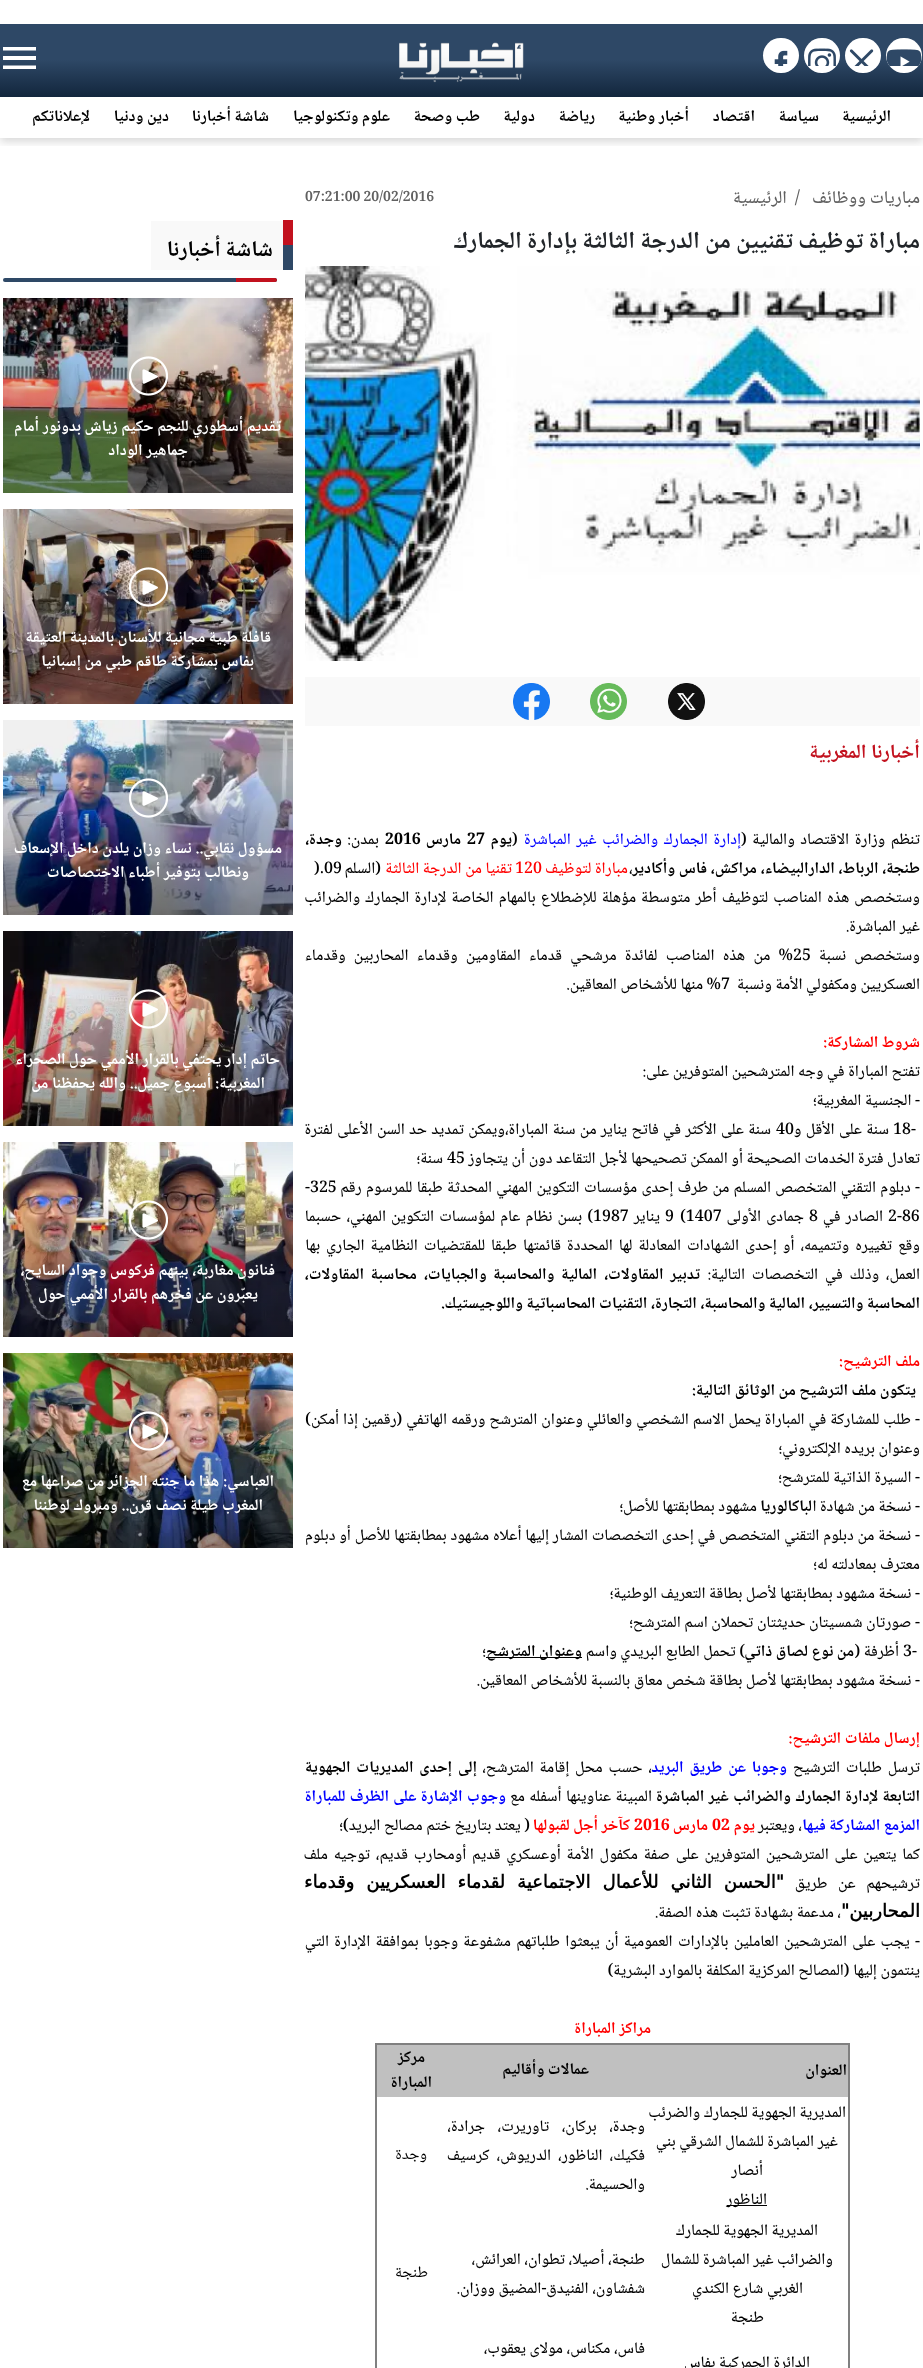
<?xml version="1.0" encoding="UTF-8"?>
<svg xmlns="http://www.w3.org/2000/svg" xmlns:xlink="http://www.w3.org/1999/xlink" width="923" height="2368">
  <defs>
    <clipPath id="clip1"><rect x="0" y="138" width="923" height="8" /></clipPath>
    <linearGradient id="g1" gradientUnits="userSpaceOnUse" x1="462" y1="24" x2="462" y2="121"><stop offset="0.37" stop-color="#2e4866" /><stop offset="1" stop-color="#001022" /></linearGradient>
    <clipPath id="clip2"><rect x="13" y="416" width="270" height="48" /></clipPath>
  </defs>
  <rect width="100%" height="100%" fill="#ffffff" />
  <g clip-path="url(#clip1)">
    <rect y="101" width="923" height="41" fill="#000000" fill-opacity="0.15" filter="blur(4px)" />
  </g>
  <rect y="24" width="923" height="73" fill="url(#g1)" />
  <rect x="886" y="38" width="36" height="35" rx="17.5" fill="#ffffff" />
  <image x="886" y="49" width="36" height="17" xlink:href="image1.png" />
  <rect x="845" y="38" width="36" height="35" rx="17.5" fill="#ffffff" />
  <image x="849" y="49" width="25" height="17" xlink:href="image2.png" />
  <rect x="804" y="38" width="36" height="35" rx="17.5" fill="#ffffff" />
  <image x="808" y="48" width="28" height="18" xlink:href="image3.png" />
  <rect x="763" y="38" width="36" height="35" rx="17.5" fill="#ffffff" />
  <image x="774" y="50" width="14" height="16" xlink:href="image4.png" />
  <image x="399" y="42" width="125" height="41" xlink:href="image5.png" />
  <path d="M 3 69 v -3.5 h 33 v 3.5 z m 0 -9 v -4 h 33 v 4 z m 0 -9.5 v -3.5 h 33 v 3.5 z" fill="#ffffff" />
  <image x="305" y="266" width="615" height="395" xlink:href="image6.png" />
  <rect x="305" y="677" width="615" height="49" fill="#f9f9f9" />
  <image x="668" y="683" width="37" height="37" xlink:href="image7.png" />
  <image x="590" y="683" width="37" height="37" xlink:href="image8.png" />
  <image x="513" y="683" width="37" height="37" xlink:href="image9.png" />
  <rect x="486" y="1657" width="96" height="1" fill="#000000" />
  <rect x="375" y="2043" width="475" height="2" fill="#808080" />
  <rect x="848" y="2043" width="2" height="325" fill="#808080" />
  <rect x="375" y="2043" width="2" height="325" fill="#808080" />
  <rect x="377" y="2045" width="471" height="52" fill="#c0c0c0" />
  <rect x="727" y="2205" width="40" height="1" fill="#000000" />
  <rect x="151" y="221" width="132" height="49" fill="#f9f9f9" />
  <rect x="283" y="245" width="10" height="25" fill="#2e4866" />
  <rect x="283" y="220" width="10" height="25" fill="#c2111e" />
  <rect x="3" y="278" width="274" height="4" rx="2" fill="#2e4866" />
  <path d="M 236 278 h 39 c 1 0 2 1 2 2 c 0 1 -1 2 -2 2 h -39 z" fill="#c2111e" />
  <image x="3" y="298" width="290" height="195" xlink:href="image10.png" />
  <image x="128" y="356" width="40" height="40" xlink:href="image11.png" />
  <image x="3" y="509" width="290" height="195" xlink:href="image12.png" />
  <image x="128" y="567" width="40" height="40" xlink:href="image13.png" />
  <image x="3" y="720" width="290" height="195" xlink:href="image14.png" />
  <image x="128" y="778" width="40" height="40" xlink:href="image15.png" />
  <image x="3" y="931" width="290" height="195" xlink:href="image16.png" />
  <image x="129" y="989" width="39" height="40" xlink:href="image17.png" />
  <image x="3" y="1142" width="290" height="195" xlink:href="image18.png" />
  <image x="128" y="1200" width="40" height="40" xlink:href="image19.png" />
  <image x="3" y="1353" width="290" height="195" xlink:href="image20.png" />
  <image x="128" y="1411" width="40" height="40" xlink:href="image21.png" />
  <text x="891" y="121" style="font-family: Noto Naskh Arabic; font-size: 16px; font-weight: bold; direction: rtl; fill: #000000">الرئيسية</text>
  <text x="819" y="121" style="font-family: Noto Naskh Arabic; font-size: 16px; font-weight: bold; direction: rtl; fill: #000000">سياسة</text>
  <text x="755" y="121" style="font-family: Noto Naskh Arabic; font-size: 16px; font-weight: bold; direction: rtl; fill: #000000">اقتصاد</text>
  <text x="689" y="121" style="font-family: Noto Naskh Arabic; font-size: 16px; font-weight: bold; direction: rtl; fill: #000000">أخبار وطنية</text>
  <text x="595" y="121" style="font-family: Noto Naskh Arabic; font-size: 16px; font-weight: bold; direction: rtl; fill: #000000">رياضة</text>
  <text x="535" y="121" style="font-family: Noto Naskh Arabic; font-size: 16px; font-weight: bold; direction: rtl; fill: #000000">دولية</text>
  <text x="480" y="121" style="font-family: Noto Naskh Arabic; font-size: 16px; font-weight: bold; direction: rtl; fill: #000000">طب وصحة</text>
  <text x="390" y="121" style="font-family: Noto Naskh Arabic; font-size: 16px; font-weight: bold; direction: rtl; fill: #000000">علوم وتكنولوجيا</text>
  <text x="269" y="121" style="font-family: Noto Naskh Arabic; font-size: 16px; font-weight: bold; direction: rtl; fill: #000000">شاشة أخبارنا</text>
  <text x="169" y="121" style="font-family: Noto Naskh Arabic; font-size: 16px; font-weight: bold; direction: rtl; fill: #000000">دين ودنيا</text>
  <text x="90" y="121" style="font-family: Noto Naskh Arabic; font-size: 16px; font-weight: bold; direction: rtl; fill: #000000">لإعلاناتكم</text>
  <text x="920" y="203" style="font-family: Noto Naskh Arabic; font-size: 18px; font-weight: 500; direction: rtl; fill: #606060">مباريات ووظائف</text>
  <text x="800" y="203" style="font-family: Noto Naskh Arabic; font-size: 18px; font-weight: 500; direction: rtl; fill: #606060" xml:space="preserve">/  الرئيسية</text>
  <text x="305" y="201" style="font-family: Noto Naskh Arabic; font-size: 14px; font-weight: 600; fill: #606060">07:21:00 20/02/2016</text>
  <text x="920" y="248" style="font-family: Noto Naskh Arabic; font-size: 24px; font-weight: bold; direction: rtl; fill: #212529">مباراة توظيف تقنيين من الدرجة الثالثة بإدارة الجمارك</text>
  <text x="920" y="758" style="font-family: Noto Naskh Arabic; font-size: 20px; font-weight: bold; direction: rtl; fill: #c2111e">أخبارنا المغربية</text>
  <text x="920" y="844" word-spacing="2" style="font-family: Noto Naskh Arabic; font-size: 16px; font-weight: 500; direction: rtl; fill: #000000">تنظم وزارة الاقتصاد والمالية (</text>
  <text x="741" y="844" word-spacing="2" style="font-family: Noto Naskh Arabic; font-size: 16px; font-weight: 500; direction: rtl; fill: #0000ff">إدارة الجمارك والضرائب غير المباشرة</text>
  <text x="512" y="844" style="font-family: Noto Naskh Arabic; font-size: 16px; font-weight: 500; fill: #000000">)</text>
  <text x="512" y="844" style="font-family: Noto Naskh Arabic; font-size: 16px; font-weight: bold; direction: rtl; fill: #000000">يوم</text>
  <text x="467" y="844" style="font-family: Noto Naskh Arabic; font-size: 16px; font-weight: bold; fill: #000000">27</text>
  <text x="461" y="844" style="font-family: Noto Naskh Arabic; font-size: 16px; font-weight: bold; direction: rtl; fill: #000000">مارس</text>
  <text x="385" y="844" style="font-family: Noto Naskh Arabic; font-size: 16px; font-weight: bold; fill: #000000">2016</text>
  <text x="379" y="844" style="font-family: Noto Naskh Arabic; font-size: 16px; font-weight: 500; direction: rtl; fill: #000000">بمدن:</text>
  <text x="342" y="844" style="font-family: Noto Naskh Arabic; font-size: 16px; font-weight: bold; direction: rtl; fill: #000000">وجدة،</text>
  <text x="920" y="873" style="font-family: Noto Naskh Arabic; font-size: 16px; font-weight: bold; direction: rtl; fill: #000000">طنجة، الرباط، الدارالبيضاء، مراكش، فاس وأكادير</text>
  <text x="629" y="873" style="font-family: Noto Naskh Arabic; font-size: 16px; font-weight: 500; fill: #000000">،</text>
  <text x="628" y="873" style="font-family: Noto Naskh Arabic; font-size: 16px; font-weight: 500; direction: rtl; fill: #ff0000">مباراة لتوظيف</text>
  <text x="515" y="873" style="font-family: Noto Naskh Arabic; font-size: 16px; font-weight: 500; fill: #ff0000">120</text>
  <text x="512" y="873" style="font-family: Noto Naskh Arabic; font-size: 16px; font-weight: 500; direction: rtl; fill: #ff0000">تقنيا من الدرجة الثالثة</text>
  <text x="381" y="873" style="font-family: Noto Naskh Arabic; font-size: 16px; font-weight: 500; direction: rtl; fill: #000000">(السلم</text>
  <text x="314" y="873" style="font-family: Noto Naskh Arabic; font-size: 16px; font-weight: 500; fill: #000000">).09</text>
  <text x="920" y="902" word-spacing="1.5" style="font-family: Noto Naskh Arabic; font-size: 16px; font-weight: 500; direction: rtl; fill: #000000">وستخصص هذه المناصب لتوظيف أطر متوسطة مؤهلة للإضطلاع بالمهام الخاصة لإدارة الجمارك والضرائب</text>
  <text x="920" y="931" style="font-family: Noto Naskh Arabic; font-size: 16px; font-weight: 500; direction: rtl; fill: #000000">غير المباشرة.</text>
  <text x="920" y="960" word-spacing="4.75" style="font-family: Noto Naskh Arabic; font-size: 16px; font-weight: 500; direction: rtl; fill: #000000">وستخصص نسبة</text>
  <text x="793" y="960" style="font-family: Noto Naskh Arabic; font-size: 16px; font-weight: 500; fill: #000000">25</text>
  <text x="793" y="960" word-spacing="4.75" style="font-family: Noto Naskh Arabic; font-size: 16px; font-weight: 500; direction: rtl; fill: #000000">% من هذه المناصب لفائدة مرشحي قدماء المقاومين وقدماء المحاربين وقدماء</text>
  <text x="920" y="989" style="font-family: Noto Naskh Arabic; font-size: 16px; font-weight: 500; direction: rtl; fill: #000000">العسكريين ومكفولي الأمة ونسبة</text>
  <text x="721" y="989" style="font-family: Noto Naskh Arabic; font-size: 16px; font-weight: 500; fill: #000000">7</text>
  <text x="721" y="989" style="font-family: Noto Naskh Arabic; font-size: 16px; font-weight: 500; direction: rtl; fill: #000000">% منها للأشخاص المعاقين.</text>
  <text x="920" y="1047" style="font-family: Noto Naskh Arabic; font-size: 16px; font-weight: bold; direction: rtl; fill: #ff0000">شروط المشاركة:</text>
  <text x="920" y="1076" style="font-family: Noto Naskh Arabic; font-size: 16px; font-weight: 500; direction: rtl; fill: #000000">تفتح المباراة في وجه المترشحين المتوفرين على:</text>
  <text x="920" y="1105" style="font-family: Noto Naskh Arabic; font-size: 16px; font-weight: 500; direction: rtl; fill: #000000">- الجنسية المغربية؛</text>
  <text x="893" y="1134" style="font-family: Noto Naskh Arabic; font-size: 16px; font-weight: 500; fill: #000000">18-</text>
  <text x="889" y="1134" word-spacing="0.75" style="font-family: Noto Naskh Arabic; font-size: 16px; font-weight: 500; direction: rtl; fill: #000000">سنة على الأقل و</text>
  <text x="776" y="1134" style="font-family: Noto Naskh Arabic; font-size: 16px; font-weight: 500; fill: #000000">40</text>
  <text x="771" y="1134" word-spacing="0.75" style="font-family: Noto Naskh Arabic; font-size: 16px; font-weight: 500; direction: rtl; fill: #000000">سنة على الأكثر في فاتح يناير من سنة المباراة،ويمكن تمديد حد السن الأعلى لفترة</text>
  <text x="920" y="1163" style="font-family: Noto Naskh Arabic; font-size: 16px; font-weight: 500; direction: rtl; fill: #000000">تعادل فترة الخدمات الصحيحة أو الممكن تصحيحها لأجل التقاعد دون أن يتجاوز</text>
  <text x="447" y="1163" style="font-family: Noto Naskh Arabic; font-size: 16px; font-weight: 500; fill: #000000">45</text>
  <text x="443" y="1163" style="font-family: Noto Naskh Arabic; font-size: 16px; font-weight: 500; direction: rtl; fill: #000000">سنة؛</text>
  <text x="920" y="1192" word-spacing="0.7" style="font-family: Noto Naskh Arabic; font-size: 16px; font-weight: 500; direction: rtl; fill: #000000">- دبلوم التقني المتخصص المسلم من طرف إحدى مؤسسات التكوين المهني المحدثة طبقا للمرسوم رقم</text>
  <text x="305" y="1192" style="font-family: Noto Naskh Arabic; font-size: 16px; font-weight: 500; fill: #000000">-325</text>
  <text x="888" y="1221" style="font-family: Noto Naskh Arabic; font-size: 16px; font-weight: 500; fill: #000000">2-86</text>
  <text x="883" y="1221" word-spacing="1.5" style="font-family: Noto Naskh Arabic; font-size: 16px; font-weight: 500; direction: rtl; fill: #000000">الصادر في</text>
  <text x="809" y="1221" style="font-family: Noto Naskh Arabic; font-size: 16px; font-weight: 500; fill: #000000">8</text>
  <text x="804" y="1221" word-spacing="1.5" style="font-family: Noto Naskh Arabic; font-size: 16px; font-weight: 500; direction: rtl; fill: #000000">جمادى الأولى</text>
  <text x="680" y="1221" style="font-family: Noto Naskh Arabic; font-size: 16px; font-weight: 500; fill: #000000">(1407</text>
  <text x="665" y="1221" style="font-family: Noto Naskh Arabic; font-size: 16px; font-weight: 500; fill: #000000">9</text>
  <text x="660" y="1221" style="font-family: Noto Naskh Arabic; font-size: 16px; font-weight: 500; direction: rtl; fill: #000000">يناير</text>
  <text x="593" y="1221" style="font-family: Noto Naskh Arabic; font-size: 16px; font-weight: 500; fill: #000000">1987</text>
  <text x="593" y="1221" word-spacing="1.5" style="font-family: Noto Naskh Arabic; font-size: 16px; font-weight: 500; direction: rtl; fill: #000000">) بسن نظام عام لمؤسسات التكوين المهني، حسبما</text>
  <text x="920" y="1250" word-spacing="2.4" style="font-family: Noto Naskh Arabic; font-size: 16px; font-weight: 500; direction: rtl; fill: #000000">وقع تغييره وتتميمه، أو إحدى الشهادات المعادلة لها المحددة قائمتها طبقا للمقتضيات النظامية الجاري بها</text>
  <text x="920" y="1279" word-spacing="3.25" style="font-family: Noto Naskh Arabic; font-size: 16px; font-weight: 500; direction: rtl; fill: #000000">العمل، وذلك في التخصصات التالية:</text>
  <text x="700" y="1279" word-spacing="3.25" style="font-family: Noto Naskh Arabic; font-size: 16px; font-weight: bold; direction: rtl; fill: #000000">تدبير المقاولات، المالية والمحاسبة والجبايات، محاسبة المقاولات،</text>
  <text x="920" y="1308" style="font-family: Noto Naskh Arabic; font-size: 16px; font-weight: bold; direction: rtl; fill: #000000">المحاسبة والتسيير، المالية والمحاسبة، التجارة، التقنيات المحاسباتية واللوجيستيك.</text>
  <text x="920" y="1366" style="font-family: Noto Naskh Arabic; font-size: 16px; font-weight: bold; direction: rtl; fill: #ff0000">ملف الترشيح:</text>
  <text x="916" y="1395" style="font-family: Noto Naskh Arabic; font-size: 16px; font-weight: bold; direction: rtl; fill: #000000">يتكون ملف الترشيح من الوثائق التالية:</text>
  <text x="920" y="1424" word-spacing="0.4" style="font-family: Noto Naskh Arabic; font-size: 16px; font-weight: 500; direction: rtl; fill: #000000">- طلب للمشاركة في المباراة يحمل الاسم الشخصي والعائلي وعنوان المترشح ورقمه الهاتفي (رقمين إذا أمكن)</text>
  <text x="920" y="1453" style="font-family: Noto Naskh Arabic; font-size: 16px; font-weight: 500; direction: rtl; fill: #000000">وعنوان بريده الإلكتروني؛</text>
  <text x="920" y="1482" style="font-family: Noto Naskh Arabic; font-size: 16px; font-weight: 500; direction: rtl; fill: #000000">- السيرة الذاتية للمترشح؛</text>
  <text x="920" y="1511" style="font-family: Noto Naskh Arabic; font-size: 16px; font-weight: 500; direction: rtl; fill: #000000">- نسخة من شهادة ا</text>
  <text x="812" y="1511" style="font-family: Noto Naskh Arabic; font-size: 16px; font-weight: bold; direction: rtl; fill: #000000">لباكالوريا</text>
  <text x="757" y="1511" style="font-family: Noto Naskh Arabic; font-size: 16px; font-weight: 500; direction: rtl; fill: #000000">مشهود بمطابقتها للأصل؛</text>
  <text x="920" y="1540" word-spacing="0.25" style="font-family: Noto Naskh Arabic; font-size: 16px; font-weight: 500; direction: rtl; fill: #000000">- نسخة من دبلوم التقني المتخصص في إحدى التخصصات المشار إليها أعلاه مشهود بمطابقتها للأصل أو دبلوم</text>
  <text x="920" y="1569" style="font-family: Noto Naskh Arabic; font-size: 16px; font-weight: 500; direction: rtl; fill: #000000">معترف بمعادلته له؛</text>
  <text x="920" y="1598" style="font-family: Noto Naskh Arabic; font-size: 16px; font-weight: 500; direction: rtl; fill: #000000">- نسخة مشهود بمطابقتها لأصل بطاقة التعريف الوطنية؛</text>
  <text x="920" y="1627" style="font-family: Noto Naskh Arabic; font-size: 16px; font-weight: 500; direction: rtl; fill: #000000">- صورتان شمسيتان حديثتان تحملان اسم المترشح؛</text>
  <text x="903" y="1656" style="font-family: Noto Naskh Arabic; font-size: 16px; font-weight: 500; fill: #000000">3-</text>
  <text x="899" y="1656" style="font-family: Noto Naskh Arabic; font-size: 16px; font-weight: 500; direction: rtl; fill: #000000">أظرفة (</text>
  <text x="854" y="1656" style="font-family: Noto Naskh Arabic; font-size: 16px; font-weight: bold; direction: rtl; fill: #000000">من نوع لصاق ذاتي</text>
  <text x="745" y="1656" style="font-family: Noto Naskh Arabic; font-size: 16px; font-weight: 500; direction: rtl; fill: #000000">) تحمل الطابع البريدي واسم</text>
  <text x="582" y="1656" style="font-family: Noto Naskh Arabic; font-size: 16px; font-weight: bold; direction: rtl; fill: #000000">وعنوان المترشح</text>
  <text x="486" y="1656" style="font-family: Noto Naskh Arabic; font-size: 16px; font-weight: 500; direction: rtl; fill: #000000">؛</text>
  <text x="920" y="1685" style="font-family: Noto Naskh Arabic; font-size: 16px; font-weight: 500; direction: rtl; fill: #000000">- نسخة مشهود بمطابقتها لأصل بطاقة شخص معاق بالنسبة للأشخاص المعاقين.</text>
  <text x="920" y="1743" style="font-family: Noto Naskh Arabic; font-size: 16px; font-weight: bold; direction: rtl; fill: #ff0000">إرسال ملفات الترشيح:</text>
  <text x="920" y="1772" word-spacing="2.25" style="font-family: Noto Naskh Arabic; font-size: 16px; font-weight: 500; direction: rtl; fill: #000000">ترسل طلبات الترشيح</text>
  <text x="787" y="1772" word-spacing="2.25" style="font-family: Noto Naskh Arabic; font-size: 16px; font-weight: bold; direction: rtl; fill: #0000ff">وجوبا عن طريق البريد</text>
  <text x="652" y="1772" word-spacing="2.25" style="font-family: Noto Naskh Arabic; font-size: 16px; font-weight: 500; direction: rtl; fill: #000000">، حسب محل إقامة المترشح،</text>
  <text x="477" y="1772" word-spacing="2.25" style="font-family: Noto Naskh Arabic; font-size: 16px; font-weight: bold; direction: rtl; fill: #000000">إلى إحدى المديريات الجهوية</text>
  <text x="920" y="1801" word-spacing="0.75" style="font-family: Noto Naskh Arabic; font-size: 16px; font-weight: bold; direction: rtl; fill: #000000">التابعة لإدارة الجمارك والضرائب غير المباشرة</text>
  <text x="652" y="1801" word-spacing="0.75" style="font-family: Noto Naskh Arabic; font-size: 16px; font-weight: 500; direction: rtl; fill: #000000">المبينة عناوينها أسفله مع</text>
  <text x="506" y="1801" word-spacing="0.75" style="font-family: Noto Naskh Arabic; font-size: 16px; font-weight: bold; direction: rtl; fill: #0000ff">وجوب الإشارة على الظرف للمباراة</text>
  <text x="920" y="1830" style="font-family: Noto Naskh Arabic; font-size: 16px; font-weight: bold; direction: rtl; fill: #0000ff">المزمع المشاركة فيها</text>
  <text x="802" y="1830" style="font-family: Noto Naskh Arabic; font-size: 16px; font-weight: 500; direction: rtl; fill: #000000">، ويعتبر</text>
  <text x="755" y="1830" style="font-family: Noto Naskh Arabic; font-size: 16px; font-weight: bold; direction: rtl; fill: #ff0000">يوم</text>
  <text x="712" y="1830" style="font-family: Noto Naskh Arabic; font-size: 16px; font-weight: bold; fill: #ff0000">02</text>
  <text x="708" y="1830" style="font-family: Noto Naskh Arabic; font-size: 16px; font-weight: bold; direction: rtl; fill: #ff0000">مارس</text>
  <text x="634" y="1830" style="font-family: Noto Naskh Arabic; font-size: 16px; font-weight: bold; fill: #ff0000">2016</text>
  <text x="630" y="1830" style="font-family: Noto Naskh Arabic; font-size: 16px; font-weight: bold; direction: rtl; fill: #ff0000">كآخر أجل لقبولها</text>
  <text x="530" y="1830" style="font-family: Noto Naskh Arabic; font-size: 16px; font-weight: 500; direction: rtl; fill: #000000">( يعتد بتاريخ ختم مصالح البريد)؛</text>
  <text x="920" y="1859" word-spacing="2.25" style="font-family: Noto Naskh Arabic; font-size: 16px; font-weight: 500; direction: rtl; fill: #000000">كما يتعين على المترشحين المتوفرين على صفة مكفول الأمة أوعسكري قديم أومحارب قديم، توجيه ملف</text>
  <text x="920" y="1888" word-spacing="7" style="font-family: Noto Naskh Arabic; font-size: 16px; font-weight: 500; direction: rtl; fill: #000000">ترشيحهم عن طريق</text>
  <text x="784" y="1888" word-spacing="6.25" style="font-family: DejaVu Sans; font-size: 18px; font-weight: bold; direction: rtl; fill: #000000">"الحسن الثاني للأعمال الاجتماعية لقدماء العسكريين وقدماء</text>
  <text x="920" y="1917" style="font-family: DejaVu Sans; font-size: 18px; font-weight: bold; direction: rtl; fill: #000000">المحاربين"</text>
  <text x="841" y="1917" style="font-family: Noto Naskh Arabic; font-size: 16px; font-weight: 500; direction: rtl; fill: #000000">، مدعمة بشهادة تثبت هذه الصفة.</text>
  <text x="920" y="1946" word-spacing="1.75" style="font-family: Noto Naskh Arabic; font-size: 16px; font-weight: 500; direction: rtl; fill: #000000">- يجب على المترشحين العاملين بالإدارات العمومية أن يبعثوا طلباتهم مشفوعة وجوبا بموافقة الإدارة التي</text>
  <text x="920" y="1975" style="font-family: Noto Naskh Arabic; font-size: 16px; font-weight: 500; direction: rtl; fill: #000000">ينتمون إليها (المصالح المركزية المكلفة بالموارد البشرية)</text>
  <text x="651" y="2033" style="font-family: Noto Naskh Arabic; font-size: 16px; font-weight: bold; direction: rtl; fill: #ff0000">مراكز المباراة</text>
  <text x="847" y="2075" style="font-family: Noto Naskh Arabic; font-size: 16px; font-weight: bold; direction: rtl; fill: #000000">العنوان</text>
  <text x="589" y="2074" style="font-family: Noto Naskh Arabic; font-size: 16px; font-weight: bold; direction: rtl; fill: #000000">عمالات وأقاليم</text>
  <text x="425" y="2062" style="font-family: Noto Naskh Arabic; font-size: 16px; font-weight: bold; direction: rtl; fill: #000000">مركز</text>
  <text x="432" y="2087" style="font-family: Noto Naskh Arabic; font-size: 16px; font-weight: bold; direction: rtl; fill: #000000">المباراة</text>
  <text x="846" y="2117" style="font-family: Noto Naskh Arabic; font-size: 16px; font-weight: 500; direction: rtl; fill: #000000">المديرية الجهوية للجمارك والضرئب</text>
  <text x="838" y="2146" style="font-family: Noto Naskh Arabic; font-size: 16px; font-weight: 500; direction: rtl; fill: #000000">غير المباشرة للشمال الشرقي بني</text>
  <text x="763" y="2175" style="font-family: Noto Naskh Arabic; font-size: 16px; font-weight: 500; direction: rtl; fill: #000000">أنصار</text>
  <text x="767" y="2204" style="font-family: Noto Naskh Arabic; font-size: 16px; font-weight: 500; direction: rtl; fill: #000000">الناظور</text>
  <text x="645" y="2131" word-spacing="9" style="font-family: Noto Naskh Arabic; font-size: 16px; font-weight: 500; direction: rtl; fill: #000000">وجدة، بركان، تاوريرت، جرادة،</text>
  <text x="645" y="2160" word-spacing="3.5" style="font-family: Noto Naskh Arabic; font-size: 16px; font-weight: 500; direction: rtl; fill: #000000">فكيك، الناظور، الدريوش، كرسيف</text>
  <text x="645" y="2189" style="font-family: Noto Naskh Arabic; font-size: 16px; font-weight: 500; direction: rtl; fill: #000000">والحسيمة.</text>
  <text x="427" y="2159" style="font-family: Noto Naskh Arabic; font-size: 16px; direction: rtl; fill: #000000">وجدة</text>
  <text x="818" y="2235" style="font-family: Noto Naskh Arabic; font-size: 16px; font-weight: 500; direction: rtl; fill: #000000">المديرية الجهوية للجمارك</text>
  <text x="833" y="2264" style="font-family: Noto Naskh Arabic; font-size: 16px; font-weight: 500; direction: rtl; fill: #000000">والضرائب غير المباشرة للشمال</text>
  <text x="803" y="2293" style="font-family: Noto Naskh Arabic; font-size: 16px; font-weight: 500; direction: rtl; fill: #000000">الغربي شارع الكندي</text>
  <text x="764" y="2322" style="font-family: Noto Naskh Arabic; font-size: 16px; font-weight: 500; direction: rtl; fill: #000000">طنجة</text>
  <text x="645" y="2264" style="font-family: Noto Naskh Arabic; font-size: 16px; font-weight: 500; direction: rtl; fill: #000000">طنجة، أصيلا، تطوان، العرائش،</text>
  <text x="645" y="2293" style="font-family: Noto Naskh Arabic; font-size: 16px; font-weight: 500; direction: rtl; fill: #000000">شفشاون، الفنيدق-المضيق ووزان.</text>
  <text x="428" y="2277" style="font-family: Noto Naskh Arabic; font-size: 16px; direction: rtl; fill: #000000">طنجة</text>
  <text x="645" y="2353" style="font-family: Noto Naskh Arabic; font-size: 16px; font-weight: 500; direction: rtl; fill: #000000">فاس، مكناس، مولاى يعقوب،</text>
  <text x="810" y="2367" style="font-family: Noto Naskh Arabic; font-size: 16px; font-weight: 500; direction: rtl; fill: #000000">الدائرة الجمركية بفاس</text>
  <text x="273" y="256" style="font-family: Noto Naskh Arabic; font-size: 22px; font-weight: bold; direction: rtl; fill: #000000">شاشة أخبارنا</text>
  <g clip-path="url(#clip2)">
    <text x="281" y="431" style="font-family: Noto Naskh Arabic; font-size: 16px; font-weight: bold; direction: rtl; fill: #ffffff">تقديم أسطوري للنجم حكيم زياش بدونور أمام</text>
  </g>
  <text x="188" y="455" style="font-family: Noto Naskh Arabic; font-size: 16px; font-weight: bold; direction: rtl; fill: #ffffff">جماهير الوداد</text>
  <text x="271" y="642" style="font-family: Noto Naskh Arabic; font-size: 16px; font-weight: bold; direction: rtl; fill: #ffffff">قافلة طبية مجانية للأسنان بالمدينة العتيقة</text>
  <text x="254" y="666" style="font-family: Noto Naskh Arabic; font-size: 16px; font-weight: bold; direction: rtl; fill: #ffffff">بفاس بمشاركة طاقم طبي من إسبانيا</text>
  <text x="282" y="853" style="font-family: Noto Naskh Arabic; font-size: 16px; font-weight: bold; direction: rtl; fill: #ffffff">مسؤول نقابي.. نساء وزان يلدن داخل الإسعاف</text>
  <text x="249" y="877" style="font-family: Noto Naskh Arabic; font-size: 16px; font-weight: bold; direction: rtl; fill: #ffffff">ونطالب بتوفير أطباء الاختصاصات</text>
  <text x="280" y="1064" style="font-family: Noto Naskh Arabic; font-size: 16px; font-weight: bold; direction: rtl; fill: #ffffff">حاتم إدار يحتفي بالقرار الأممي حول الصحراء</text>
  <text x="265" y="1088" style="font-family: Noto Naskh Arabic; font-size: 16px; font-weight: bold; direction: rtl; fill: #ffffff">المغربية: أسبوع جميل.. والله يحفظنا من</text>
  <text x="275" y="1275" style="font-family: Noto Naskh Arabic; font-size: 16px; font-weight: bold; direction: rtl; fill: #ffffff">فنانون مغاربة، بينهم فركوس وجواد السايح،</text>
  <text x="258" y="1299" style="font-family: Noto Naskh Arabic; font-size: 16px; font-weight: bold; direction: rtl; fill: #ffffff">يعبّرون عن فخرهم بالقرار الأممي حول</text>
  <text x="274" y="1486" style="font-family: Noto Naskh Arabic; font-size: 16px; font-weight: bold; direction: rtl; fill: #ffffff">العباسي: هذا ما جنته الجزائر من صراعها مع</text>
  <text x="263" y="1510" style="font-family: Noto Naskh Arabic; font-size: 16px; font-weight: bold; direction: rtl; fill: #ffffff">المغرب طيلة نصف قرن.. ومبروك لوطننا</text>
</svg>
